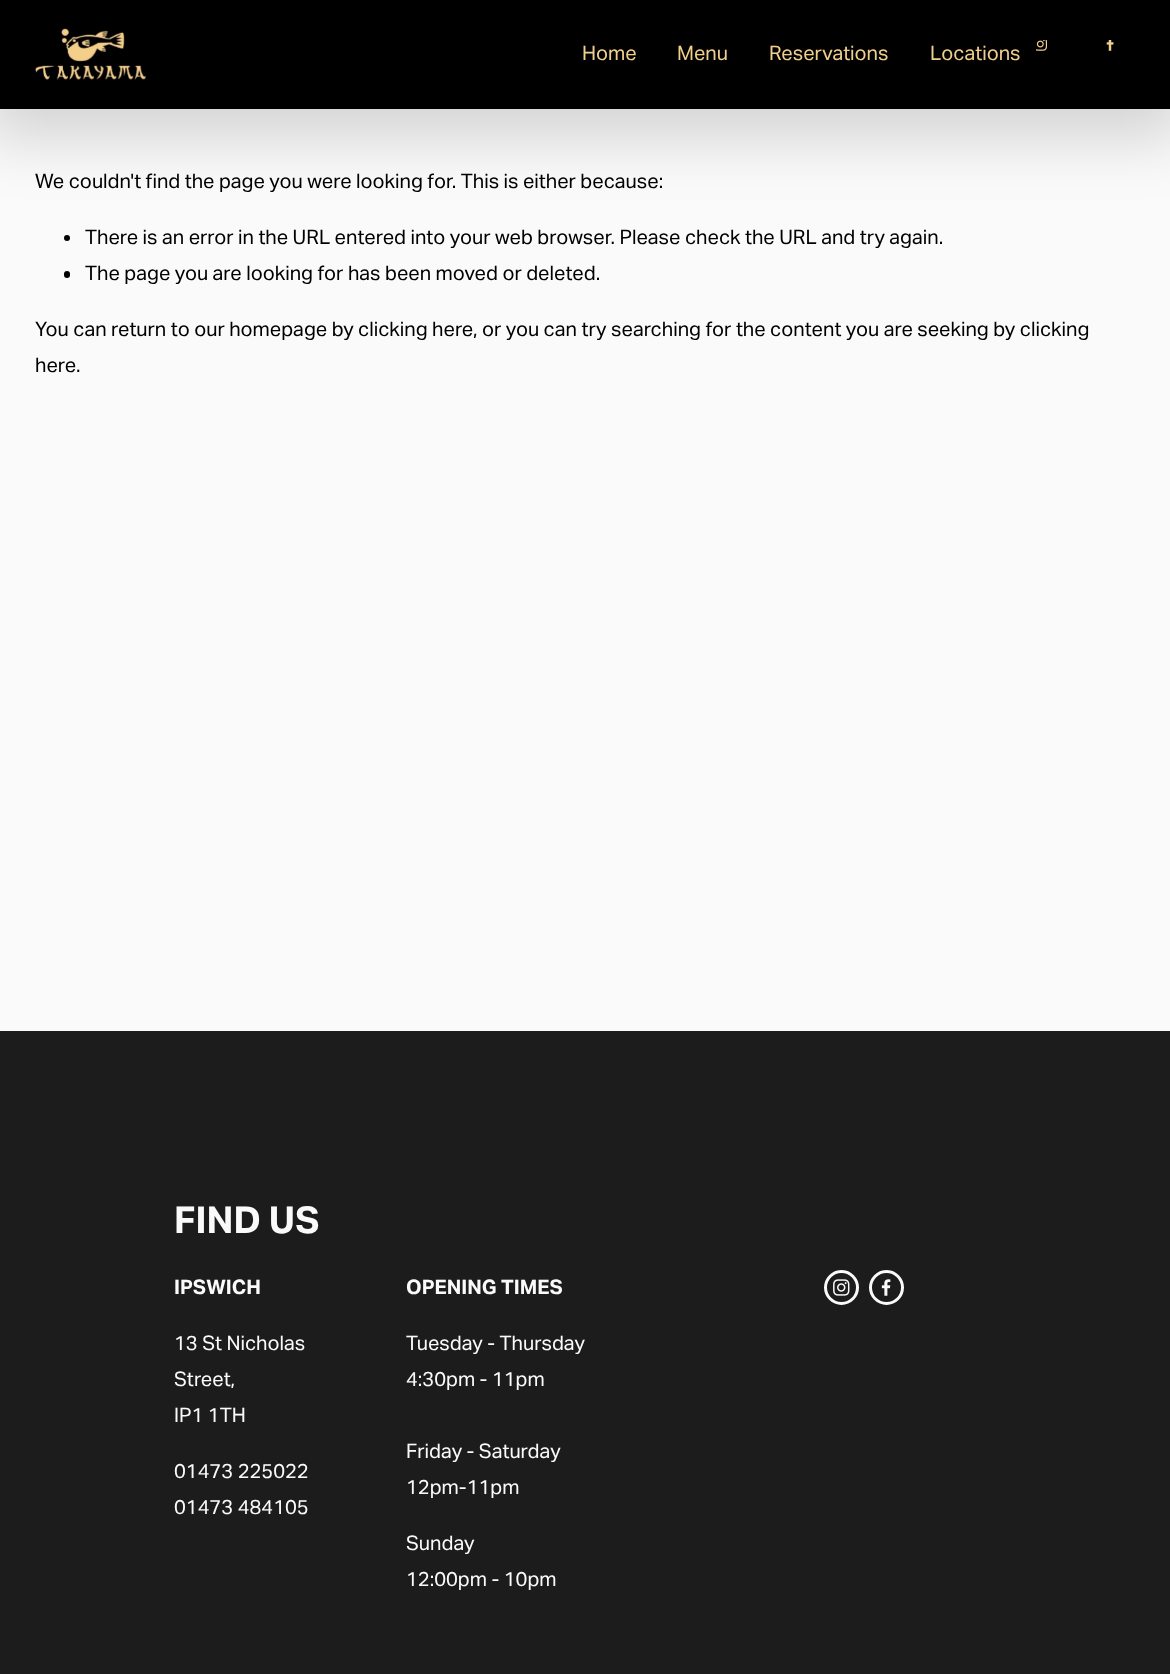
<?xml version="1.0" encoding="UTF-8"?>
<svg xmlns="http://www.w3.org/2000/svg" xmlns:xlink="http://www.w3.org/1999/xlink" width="1170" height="1674">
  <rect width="100%" height="100%" fill="#fafafa" />
  <rect x="-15" width="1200" height="139" fill="#000000" fill-opacity="0.15" filter="blur(30px)" />
  <rect width="1170" height="109" fill="#000000" />
  <image x="35" y="28" width="111" height="52" xlink:href="image1.png" />
  <image x="1036" y="40" width="12" height="11" xlink:href="image2.png" />
  <image x="1106" y="40" width="8" height="11" xlink:href="image3.png" />
  <circle cx="67" cy="238" r="3" fill="#000000" />
  <rect x="64" y="271" width="6" height="7" rx="3" fill="#000000" />
  <rect y="1031" width="1170" height="643" fill="#1c1c1c" />
  <circle cx="841.5" cy="1287.5" r="16" fill="none" stroke="#fafafa" stroke-width="3" />
  <image x="833" y="1279" width="17" height="17" xlink:href="image4.png" />
  <circle cx="886.5" cy="1287.5" r="16" fill="none" stroke="#fafafa" stroke-width="3" />
  <image x="881" y="1279" width="10" height="17" xlink:href="image5.png" />
  <text x="582" y="60" style="font-family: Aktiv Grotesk; font-size: 20px; fill: #f0cf8a">Home</text>
  <text x="677" y="60" style="font-family: Aktiv Grotesk; font-size: 20px; fill: #f0cf8a">Menu</text>
  <text x="769" y="60" style="font-family: Aktiv Grotesk; font-size: 20px; fill: #f0cf8a">Reservations</text>
  <text x="930" y="60" style="font-family: Aktiv Grotesk; font-size: 20px; fill: #f0cf8a">Locations</text>
  <text x="35" y="188" style="font-family: Aktiv Grotesk; font-size: 20px; fill: #000000">We couldn't find the page you were looking for. This is either because:</text>
  <text x="85" y="244" style="font-family: Aktiv Grotesk; font-size: 20px; fill: #000000">There is an error in the URL entered into your web browser. Please check the URL and try again.</text>
  <text x="85" y="280" style="font-family: Aktiv Grotesk; font-size: 20px; fill: #000000">The page you are looking for has been moved or deleted.</text>
  <text x="35" y="336" style="font-family: Aktiv Grotesk; font-size: 20px; fill: #000000">You can return to our homepage by</text>
  <text x="358" y="336" style="font-family: Aktiv Grotesk; font-size: 20px; fill: #000000">clicking here</text>
  <text x="473" y="336" style="font-family: Aktiv Grotesk; font-size: 20px; fill: #000000">, or you can try searching for the content you are seeking by clicking</text>
  <text x="35" y="372" style="font-family: Aktiv Grotesk; font-size: 20px; fill: #000000">here</text>
  <text x="76" y="372" style="font-family: Aktiv Grotesk; font-size: 20px; fill: #000000">.</text>
  <text x="174" y="1233" style="font-family: Aktiv Grotesk; font-size: 37px; font-weight: bold; fill: #fafafa">FIND US</text>
  <text x="174" y="1294" style="font-family: Aktiv Grotesk; font-size: 20px; font-weight: bold; fill: #fafafa">IPSWICH</text>
  <text x="174" y="1350" style="font-family: Aktiv Grotesk; font-size: 20px; fill: #fafafa">13 St Nicholas</text>
  <text x="174" y="1386" style="font-family: Aktiv Grotesk; font-size: 20px; fill: #fafafa">Street,</text>
  <text x="174" y="1422" style="font-family: Aktiv Grotesk; font-size: 20px; fill: #fafafa">IP1 1TH</text>
  <text x="174" y="1478" style="font-family: Aktiv Grotesk; font-size: 20px; fill: #fafafa">01473 225022</text>
  <text x="174" y="1514" style="font-family: Aktiv Grotesk; font-size: 20px; fill: #fafafa">01473 484105</text>
  <text x="406" y="1294" style="font-family: Aktiv Grotesk; font-size: 20px; font-weight: bold; fill: #fafafa">OPENING TIMES</text>
  <text x="406" y="1350" style="font-family: Aktiv Grotesk; font-size: 20px; fill: #fafafa">Tuesday - Thursday</text>
  <text x="406" y="1386" style="font-family: Aktiv Grotesk; font-size: 20px; fill: #fafafa">4:30pm - 11pm</text>
  <text x="406" y="1458" style="font-family: Aktiv Grotesk; font-size: 20px; fill: #fafafa">Friday - Saturday</text>
  <text x="406" y="1494" style="font-family: Aktiv Grotesk; font-size: 20px; fill: #fafafa">12pm-11pm</text>
  <text x="406" y="1550" style="font-family: Aktiv Grotesk; font-size: 20px; fill: #fafafa">Sunday</text>
  <text x="406" y="1586" style="font-family: Aktiv Grotesk; font-size: 20px; fill: #fafafa">12:00pm - 10pm</text>
</svg>
